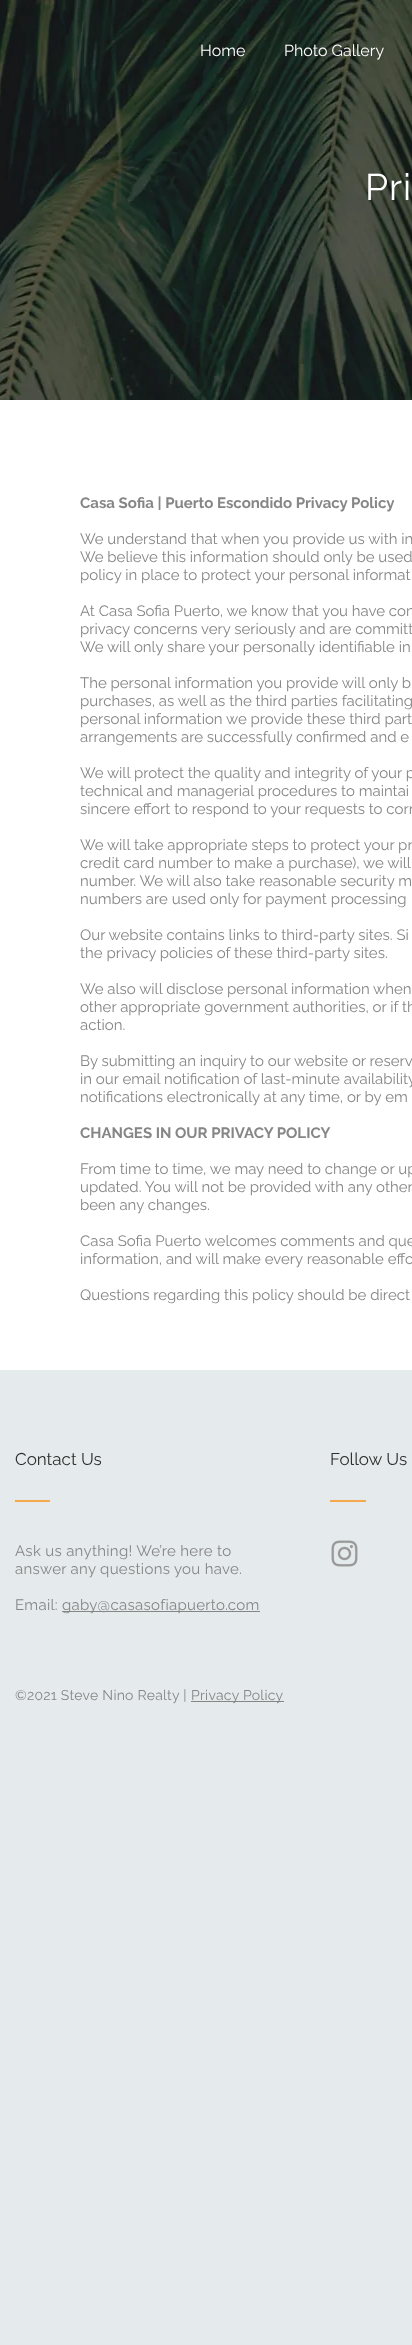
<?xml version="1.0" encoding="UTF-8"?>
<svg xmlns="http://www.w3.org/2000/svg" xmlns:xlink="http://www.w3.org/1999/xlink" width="412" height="2345">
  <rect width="100%" height="100%" fill="#e5ebed" />
  <image x="0" y="0" width="412" height="400" xlink:href="image1.png" />
  <rect y="400" width="412" height="970" fill="#ffffff" />
  <rect x="15" y="1500" width="35" height="2" fill="#f6a84f" />
  <rect x="330" y="1500" width="36" height="2" fill="#f6a84f" />
  <rect x="62" y="1611" width="198" height="1" fill="#868686" />
  <image x="331" y="1540" width="27" height="27" xlink:href="image2.png" />
  <rect x="191" y="1701" width="93" height="1" fill="#868686" />
  <text x="200" y="56" style="font-family: Raleway; font-size: 16px; fill: #ffffff">Home</text>
  <text x="284" y="56" style="font-family: Raleway; font-size: 16px; fill: #ffffff">Photo Gallery</text>
  <text x="365" y="200" style="font-family: Raleway; font-size: 37px; letter-spacing: 1px; fill: #ffffff">Pri</text>
  <text x="80" y="508" style="font-family: Raleway; font-size: 15px; font-weight: bold; fill: #868686">Casa Sofia | Puerto Escondido Privacy Policy</text>
  <text x="80" y="544" style="font-family: Raleway; font-size: 15px; fill: #868686">We understand that when you provide us with in</text>
  <text x="80" y="562" style="font-family: Raleway; font-size: 15px; fill: #868686">We believe this information should only be used</text>
  <text x="80" y="580" style="font-family: Raleway; font-size: 15px; fill: #868686">policy in place to protect your personal informat</text>
  <text x="80" y="616" style="font-family: Raleway; font-size: 15px; fill: #868686">At Casa Sofia Puerto, we know that you have con</text>
  <text x="80" y="634" style="font-family: Raleway; font-size: 15px; fill: #868686">privacy concerns very seriously and are committ</text>
  <text x="80" y="652" style="font-family: Raleway; font-size: 15px; fill: #868686">We will only share your personally identifiable in</text>
  <text x="80" y="688" style="font-family: Raleway; font-size: 15px; fill: #868686">The personal information you provide will only b</text>
  <text x="80" y="706" style="font-family: Raleway; font-size: 15px; fill: #868686">purchases, as well as the third parties facilitating</text>
  <text x="80" y="724" style="font-family: Raleway; font-size: 15px; fill: #868686">personal information we provide these third part</text>
  <text x="80" y="742" style="font-family: Raleway; font-size: 15px; fill: #868686">arrangements are successfully confirmed and e</text>
  <text x="80" y="778" style="font-family: Raleway; font-size: 15px; fill: #868686">We will protect the quality and integrity of your p</text>
  <text x="80" y="796" style="font-family: Raleway; font-size: 15px; fill: #868686">technical and managerial procedures to maintai</text>
  <text x="80" y="814" style="font-family: Raleway; font-size: 15px; fill: #868686">sincere effort to respond to your requests to corr</text>
  <text x="80" y="850" style="font-family: Raleway; font-size: 15px; fill: #868686">We will take appropriate steps to protect your pr</text>
  <text x="80" y="868" style="font-family: Raleway; font-size: 15px; fill: #868686">credit card number to make a purchase), we will</text>
  <text x="80" y="886" style="font-family: Raleway; font-size: 15px; fill: #868686">number. We will also take reasonable security m</text>
  <text x="80" y="904" style="font-family: Raleway; font-size: 15px; fill: #868686">numbers are used only for payment processing</text>
  <text x="80" y="940" style="font-family: Raleway; font-size: 15px; fill: #868686">Our website contains links to third-party sites. Si</text>
  <text x="80" y="958" style="font-family: Raleway; font-size: 15px; fill: #868686">the privacy policies of these third-party sites.</text>
  <text x="80" y="994" style="font-family: Raleway; font-size: 15px; fill: #868686">We also will disclose personal information when</text>
  <text x="80" y="1012" style="font-family: Raleway; font-size: 15px; fill: #868686">other appropriate government authorities, or if th</text>
  <text x="80" y="1030" style="font-family: Raleway; font-size: 15px; fill: #868686">action.</text>
  <text x="80" y="1066" style="font-family: Raleway; font-size: 15px; fill: #868686">By submitting an inquiry to our website or reserv</text>
  <text x="80" y="1084" style="font-family: Raleway; font-size: 15px; fill: #868686">in our email notification of last-minute availability</text>
  <text x="80" y="1102" style="font-family: Raleway; font-size: 15px; fill: #868686">notifications electronically at any time, or by em</text>
  <text x="80" y="1138" style="font-family: Raleway; font-size: 15px; font-weight: bold; fill: #868686">CHANGES IN OUR PRIVACY POLICY</text>
  <text x="80" y="1174" style="font-family: Raleway; font-size: 15px; fill: #868686">From time to time, we may need to change or up</text>
  <text x="80" y="1192" style="font-family: Raleway; font-size: 15px; fill: #868686">updated. You will not be provided with any other</text>
  <text x="80" y="1210" style="font-family: Raleway; font-size: 15px; fill: #868686">been any changes.</text>
  <text x="80" y="1246" style="font-family: Raleway; font-size: 15px; fill: #868686">Casa Sofia Puerto welcomes comments and que</text>
  <text x="80" y="1264" style="font-family: Raleway; font-size: 15px; fill: #868686">information, and will make every reasonable effo</text>
  <text x="80" y="1300" style="font-family: Raleway; font-size: 15px; fill: #868686">Questions regarding this policy should be direct</text>
  <text x="15" y="1465" style="font-family: Raleway; font-size: 17px; fill: #2f2e2e">Contact Us</text>
  <text x="330" y="1465" style="font-family: Raleway; font-size: 17px; fill: #2f2e2e">Follow Us</text>
  <text x="15" y="1556" style="font-family: Raleway; font-size: 15px; letter-spacing: 0.3px; fill: #868686">Ask us anything! We’re here to</text>
  <text x="15" y="1574" style="font-family: Raleway; font-size: 15px; letter-spacing: 0.3px; fill: #868686">answer any questions you have.</text>
  <text x="15" y="1610" style="font-family: Raleway; font-size: 15px; letter-spacing: 0.3px; fill: #868686">Email:</text>
  <text x="62" y="1610" style="font-family: Raleway; font-size: 15px; letter-spacing: 0.3px; fill: #868686">gaby@casasofiapuerto.com</text>
  <text x="15" y="1700" style="font-family: Raleway; font-size: 14px; letter-spacing: 0.25px; fill: #868686">©2021 Steve Nino Realty |</text>
  <text x="191" y="1700" style="font-family: Raleway; font-size: 14px; letter-spacing: 0.25px; fill: #868686">Privacy Policy</text>
</svg>
